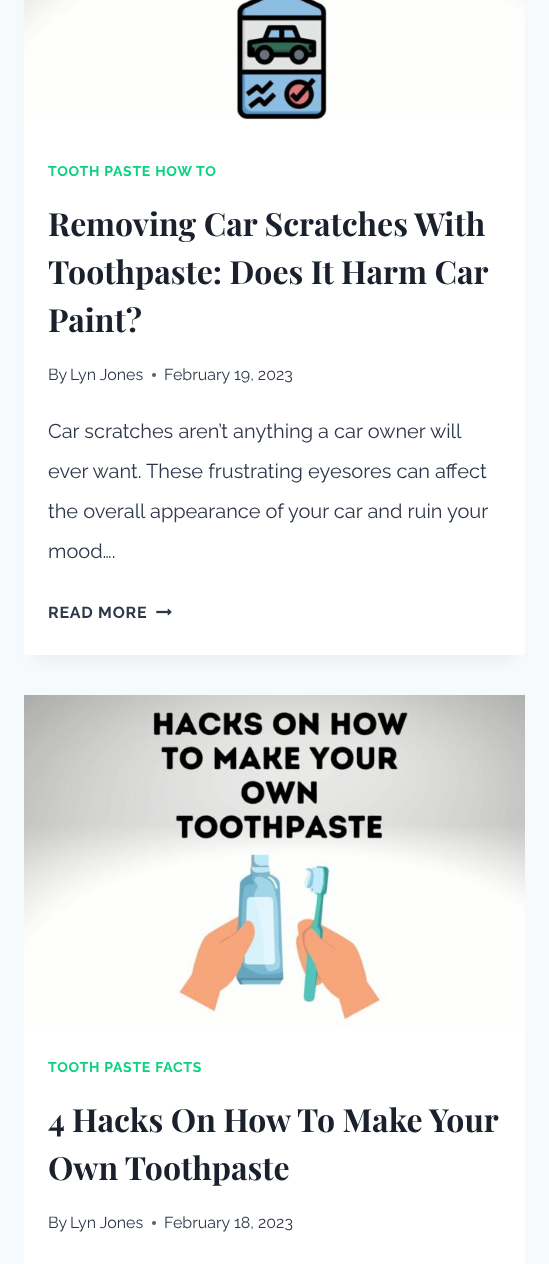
<?xml version="1.0" encoding="UTF-8"?>
<svg xmlns="http://www.w3.org/2000/svg" xmlns:xlink="http://www.w3.org/1999/xlink" width="549" height="1264">
  <rect width="100%" height="100%" fill="#f7fafc" />
  <rect x="34" y="-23" width="481" height="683" fill="#000000" fill-opacity="0.05" filter="blur(7.5px)" />
  <rect x="24" y="-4" width="501" height="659" rx="4" fill="#ffffff" />
  <image x="24" y="0" width="501" height="121" xlink:href="image1.png" />
  <circle cx="154" cy="375" r="2" fill="#575f6d" />
  <image x="156" y="608" width="16" height="8" xlink:href="image2.png" />
  <rect x="24" y="1029" width="501" height="235" fill="#ffffff" />
  <image x="24" y="695" width="501" height="334" xlink:href="image3.png" />
  <circle cx="154" cy="1223" r="2" fill="#575f6d" />
  <text x="48" y="176" style="font-family: Raleway; font-size: 14px; font-weight: bold; letter-spacing: 0.75px; fill: #0bd282">TOOTH PASTE HOW TO</text>
  <text x="48" y="236" style="font-family: Playfair Display; font-size: 32px; font-weight: bold; fill: #1a202c">Removing Car Scratches With</text>
  <text x="48" y="284" style="font-family: Playfair Display; font-size: 32px; font-weight: bold; fill: #1a202c">Toothpaste: Does It Harm Car</text>
  <text x="48" y="332" style="font-family: Playfair Display; font-size: 32px; font-weight: bold; fill: #1a202c">Paint?</text>
  <text x="48" y="380" style="font-family: Raleway; font-size: 16px; fill: #2d3748">By</text>
  <text x="70" y="380" style="font-family: Raleway; font-size: 16px; fill: #2d3748">Lyn Jones</text>
  <text x="164" y="380" style="font-family: Raleway; font-size: 16px; fill: #2d3748">February 19, 2023</text>
  <text x="48" y="438" style="font-family: Raleway; font-size: 20px; fill: #2d3748">Car scratches aren’t anything a car owner will</text>
  <text x="48" y="478" style="font-family: Raleway; font-size: 20px; fill: #2d3748">ever want. These frustrating eyesores can affect</text>
  <text x="48" y="518" style="font-family: Raleway; font-size: 20px; fill: #2d3748">the overall appearance of your car and ruin your</text>
  <text x="48" y="558" style="font-family: Raleway; font-size: 20px; fill: #2d3748">mood….</text>
  <text x="48" y="618" style="font-family: Raleway; font-size: 16px; font-weight: bold; letter-spacing: 0.75px; fill: #2d3748">READ MORE</text>
  <text x="48" y="1072" style="font-family: Raleway; font-size: 14px; font-weight: bold; letter-spacing: 0.75px; fill: #0bd282">TOOTH PASTE FACTS</text>
  <text x="48" y="1132" style="font-family: Playfair Display; font-size: 32px; font-weight: bold; fill: #1a202c">4 Hacks On How To Make Your</text>
  <text x="48" y="1180" style="font-family: Playfair Display; font-size: 32px; font-weight: bold; fill: #1a202c">Own Toothpaste</text>
  <text x="48" y="1228" style="font-family: Raleway; font-size: 16px; fill: #2d3748">By</text>
  <text x="70" y="1228" style="font-family: Raleway; font-size: 16px; fill: #2d3748">Lyn Jones</text>
  <text x="164" y="1228" style="font-family: Raleway; font-size: 16px; fill: #2d3748">February 18, 2023</text>
</svg>
